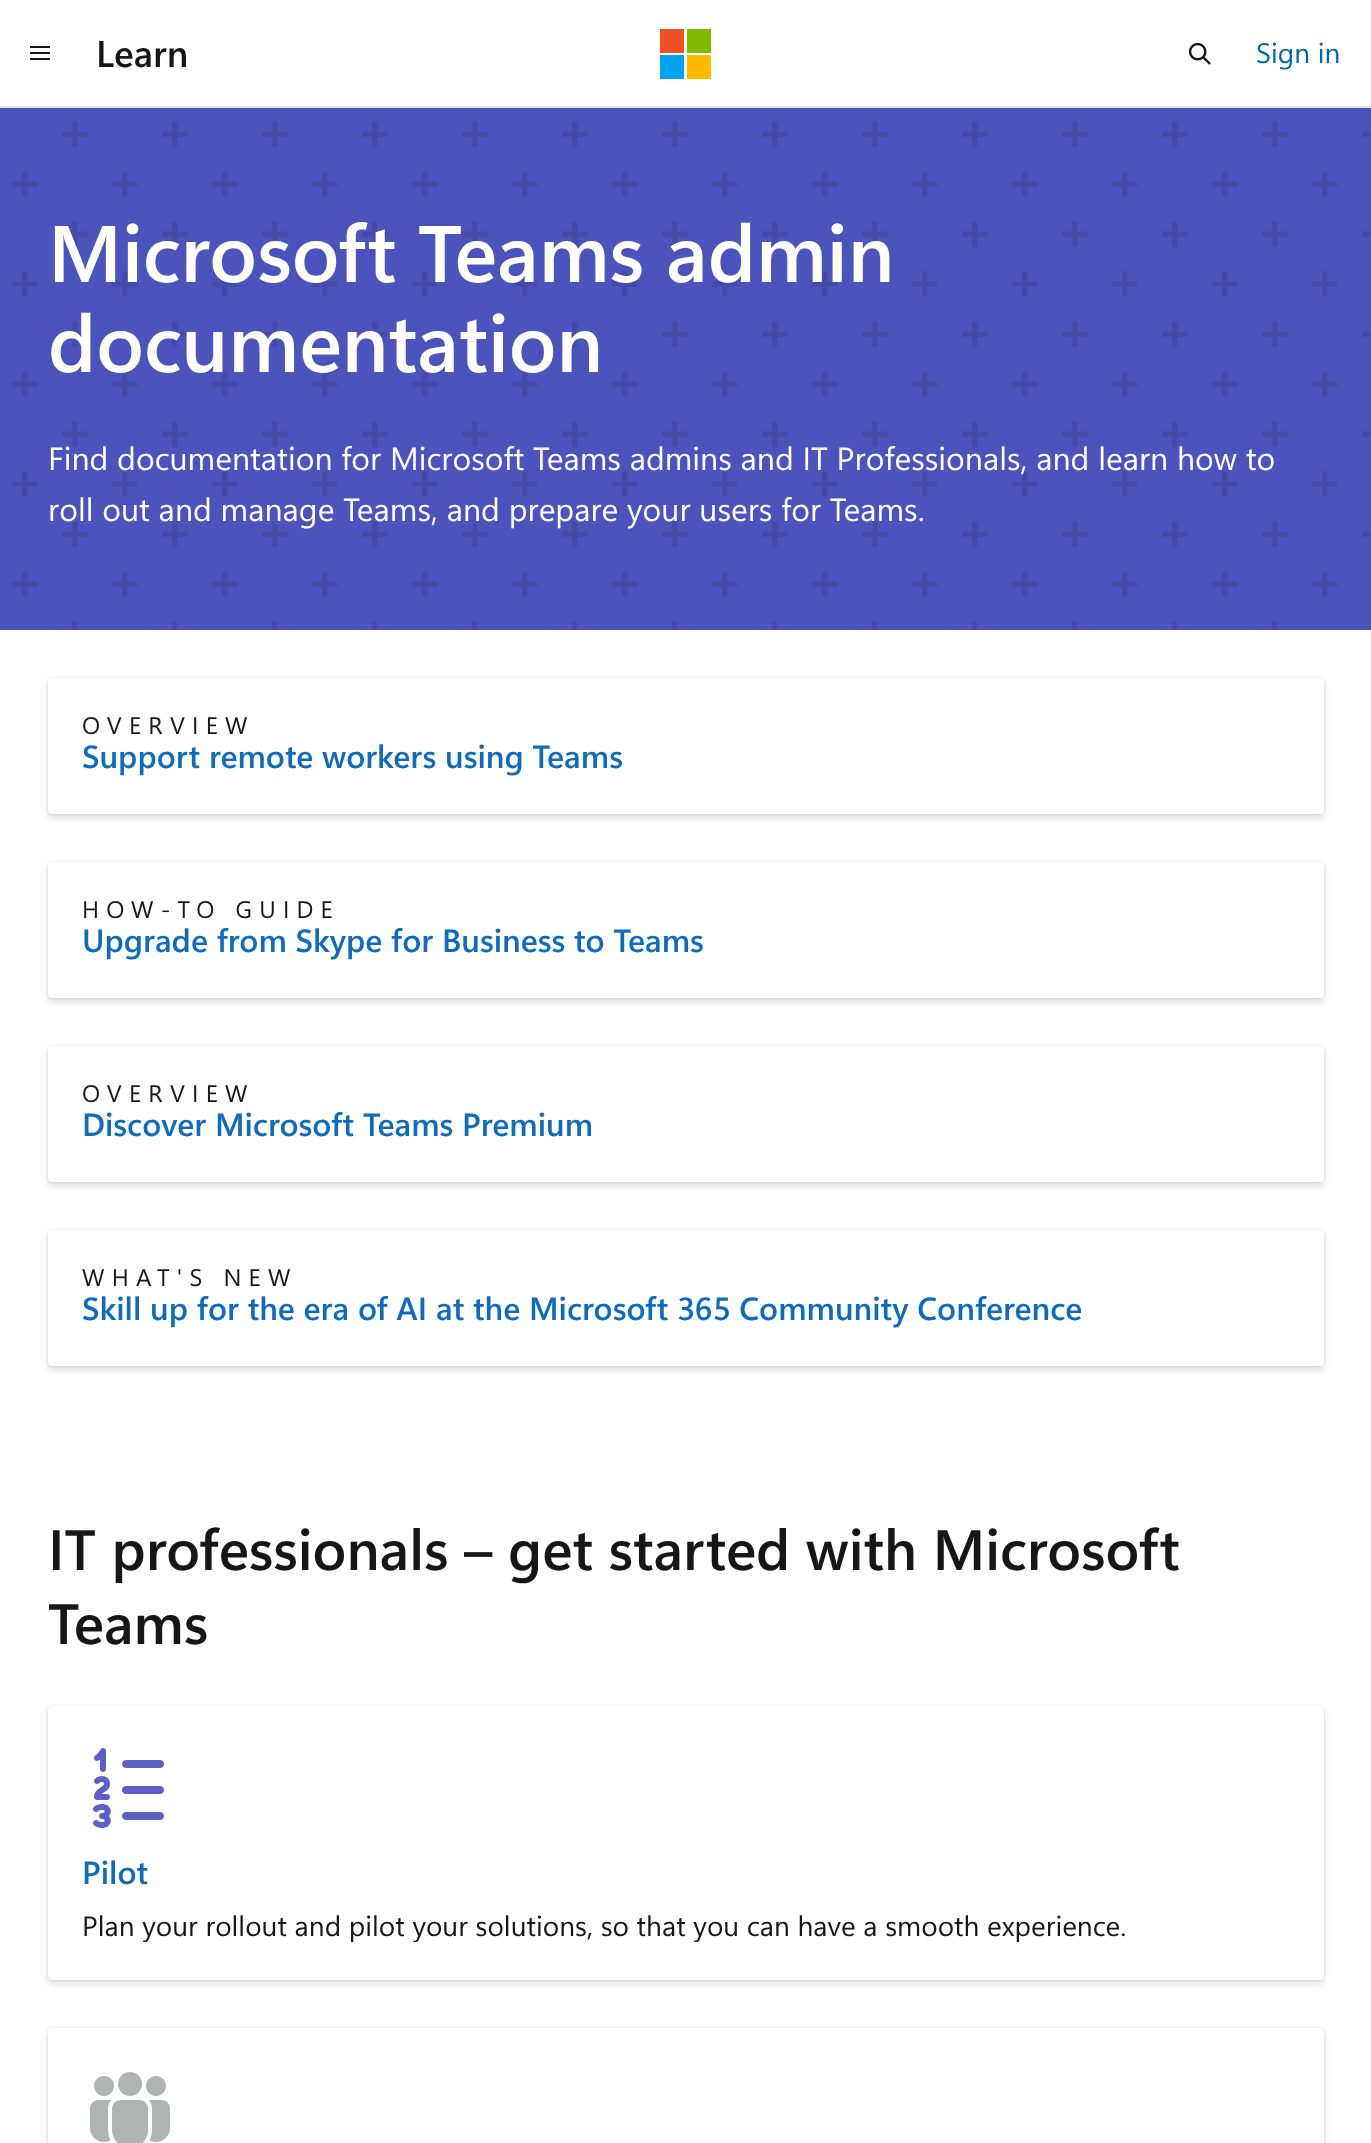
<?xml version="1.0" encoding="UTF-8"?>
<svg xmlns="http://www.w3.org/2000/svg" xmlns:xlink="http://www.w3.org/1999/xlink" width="1371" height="2143">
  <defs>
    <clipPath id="clip1"><rect x="82" y="1908" width="1208" height="34" /></clipPath>
  </defs>
  <rect width="100%" height="100%" fill="#ffffff" />
  <rect y="106" width="1371" height="2" fill="#e6e6e6" />
  <image x="30" y="46" width="20" height="14" xlink:href="image1.png" />
  <rect x="660" y="29" width="24" height="24" fill="#f25022" />
  <rect x="687" y="29" width="24" height="24" fill="#7fba00" />
  <rect x="660" y="55" width="24" height="24" fill="#00a4ef" />
  <rect x="687" y="55" width="24" height="24" fill="#ffb900" />
  <image x="1188" y="42" width="23" height="23" xlink:href="image2.png" />
  <rect y="108" width="1371" height="522" fill="#4b53bc" />
  <image x="12" y="121" width="1359" height="509" xlink:href="image3.png" />
  <rect x="48" y="678" width="1276" height="136" rx="4" fill="#000000" fill-opacity="0.11" filter="blur(1px)" />
  <rect x="48" y="682" width="1276" height="136" rx="4" fill="#000000" fill-opacity="0.13" filter="blur(3.5px)" />
  <rect x="48" y="678" width="1276" height="136" rx="4" fill="#ffffff" />
  <rect x="48" y="862" width="1276" height="136" rx="4" fill="#000000" fill-opacity="0.11" filter="blur(1px)" />
  <rect x="48" y="866" width="1276" height="136" rx="4" fill="#000000" fill-opacity="0.13" filter="blur(3.5px)" />
  <rect x="48" y="862" width="1276" height="136" rx="4" fill="#ffffff" />
  <rect x="48" y="1046" width="1276" height="136" rx="4" fill="#000000" fill-opacity="0.11" filter="blur(1px)" />
  <rect x="48" y="1050" width="1276" height="136" rx="4" fill="#000000" fill-opacity="0.13" filter="blur(3.5px)" />
  <rect x="48" y="1046" width="1276" height="136" rx="4" fill="#ffffff" />
  <rect x="48" y="1230" width="1276" height="136" rx="4" fill="#000000" fill-opacity="0.11" filter="blur(1px)" />
  <rect x="48" y="1234" width="1276" height="136" rx="4" fill="#000000" fill-opacity="0.13" filter="blur(3.5px)" />
  <rect x="48" y="1230" width="1276" height="136" rx="4" fill="#ffffff" />
  <rect x="48" y="1706" width="1276" height="274" rx="4" fill="#000000" fill-opacity="0.11" filter="blur(1px)" />
  <rect x="48" y="1710" width="1276" height="274" rx="4" fill="#000000" fill-opacity="0.13" filter="blur(3.5px)" />
  <rect x="48" y="1706" width="1276" height="274" rx="4" fill="#ffffff" />
  <image x="93" y="1748" width="71" height="80" xlink:href="image4.png" />
  <rect x="48" y="2028" width="1276" height="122" rx="4" fill="#000000" fill-opacity="0.11" filter="blur(1px)" />
  <rect x="48" y="2032" width="1276" height="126" rx="4" fill="#000000" fill-opacity="0.13" filter="blur(3.5px)" />
  <rect x="48" y="2028" width="1276" height="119" rx="4" fill="#ffffff" />
  <image x="90" y="2072" width="80" height="71" xlink:href="image5.png" />
  <text x="96" y="67" style="font-family: Segoe UI; font-size: 37px; font-weight: 600; fill: #161616">Learn</text>
  <text x="1256" y="63" style="font-family: Segoe UI; font-size: 28px; fill: #0065b3">Sign in</text>
  <text x="48" y="282" style="font-family: Segoe UI; font-size: 80px; font-weight: 600; fill: #ffffff">Microsoft Teams admin</text>
  <text x="48" y="372" style="font-family: Segoe UI; font-size: 80px; font-weight: 600; fill: #ffffff">documentation</text>
  <text x="48" y="470" style="font-family: Segoe UI; font-size: 32px; fill: #ffffff">Find documentation for Microsoft Teams admins and IT Professionals, and learn how to</text>
  <text x="48" y="521" style="font-family: Segoe UI; font-size: 32px; fill: #ffffff">roll out and manage Teams, and prepare your users for Teams.</text>
  <text x="82" y="734" style="font-family: Segoe UI; font-size: 24px; letter-spacing: 7.25px; fill: #161616">OVERVIEW</text>
  <text x="82" y="768" style="font-family: Segoe UI; font-size: 32px; font-weight: 600; fill: #0f6cbd">Support remote workers using Teams</text>
  <text x="82" y="918" style="font-family: Segoe UI; font-size: 24px; letter-spacing: 7.25px; fill: #161616">HOW-TO GUIDE</text>
  <text x="82" y="952" style="font-family: Segoe UI; font-size: 32px; font-weight: 600; fill: #0f6cbd">Upgrade from Skype for Business to Teams</text>
  <text x="82" y="1102" style="font-family: Segoe UI; font-size: 24px; letter-spacing: 7.25px; fill: #161616">OVERVIEW</text>
  <text x="82" y="1136" style="font-family: Segoe UI; font-size: 32px; font-weight: 600; fill: #0f6cbd">Discover Microsoft Teams Premium</text>
  <text x="82" y="1286" style="font-family: Segoe UI; font-size: 24px; letter-spacing: 7.25px; fill: #161616">WHAT'S NEW</text>
  <text x="82" y="1320" style="font-family: Segoe UI; font-size: 32px; font-weight: 600; fill: #0f6cbd">Skill up for the era of AI at the Microsoft 365 Community Conference</text>
  <text x="48" y="1570" style="font-family: Segoe UI; font-size: 56.75px; font-weight: 600; fill: #161616">IT professionals – get started with Microsoft</text>
  <text x="48" y="1644" style="font-family: Segoe UI; font-size: 56.75px; font-weight: 600; fill: #161616">Teams</text>
  <text x="82" y="1884" style="font-family: Segoe UI; font-size: 32px; font-weight: 600; fill: #0f6cbd">Pilot</text>
  <g clip-path="url(#clip1)">
    <text x="82" y="1936" style="font-family: Segoe UI; font-size: 28px; fill: #161616">Plan your rollout and pilot your solutions, so that you can have a smooth experience.</text>
  </g>
</svg>
